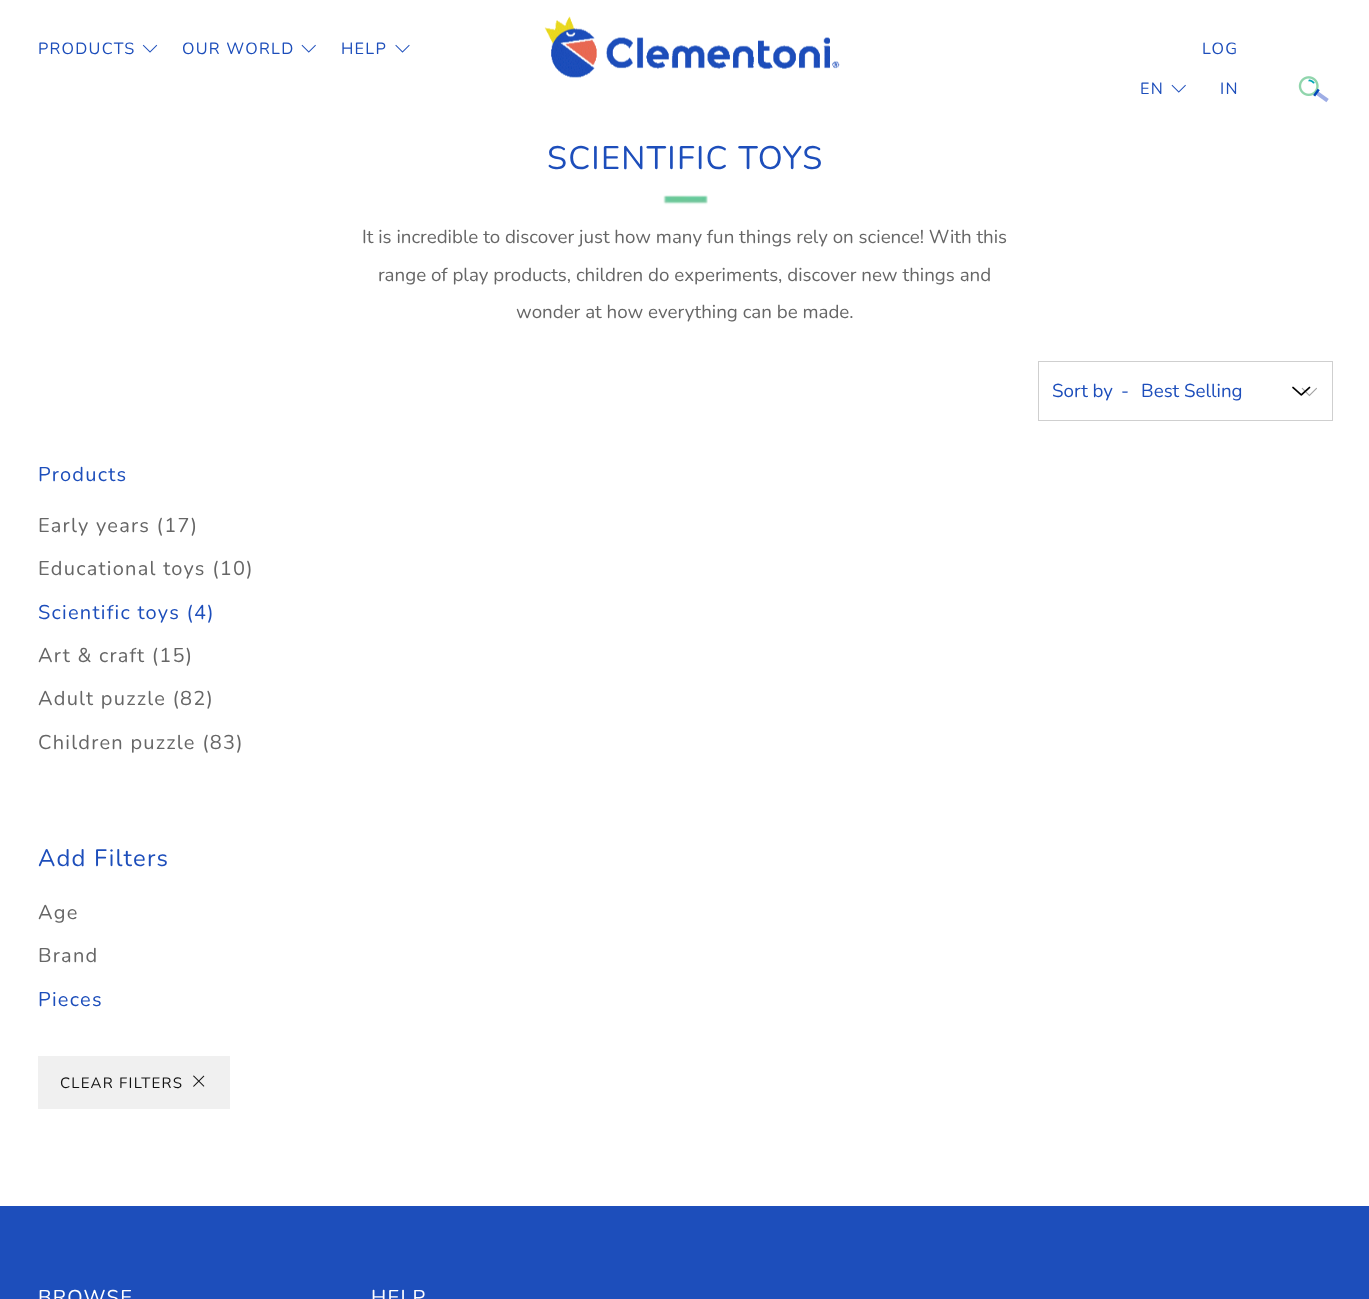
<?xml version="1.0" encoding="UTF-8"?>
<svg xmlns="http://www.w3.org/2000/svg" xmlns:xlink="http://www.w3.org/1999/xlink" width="1369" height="1299">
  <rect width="100%" height="100%" fill="#ffffff" />
  <image x="544" y="16" width="296" height="62" xlink:href="image1.png" />
  <image x="142" y="44" width="16" height="9" xlink:href="image2.png" />
  <image x="301" y="44" width="15" height="9" xlink:href="image3.png" />
  <image x="395" y="44" width="15" height="9" xlink:href="image4.png" />
  <image x="1171" y="84" width="15" height="9" xlink:href="image3.png" />
  <image x="1298" y="76" width="31" height="27" xlink:href="image5.png" />
  <image x="663" y="195" width="45" height="10" xlink:href="image6.png" />
  <image x="1292" y="386" width="19" height="10" xlink:href="image7.png" />
  <rect x="1038.5" y="361.5" width="294" height="59" fill="none" stroke="#cfcfcf" />
  <image x="1301" y="387" width="16" height="10" xlink:href="image8.png" />
  <rect x="38" y="1056" width="192" height="53" fill="#f0f0f0" />
  <image x="193" y="1075" width="12" height="12" xlink:href="image9.png" />
  <rect y="1206" width="1369" height="93" fill="#1d4ebb" />
  <text x="38" y="54" style="font-family: Nunito; font-size: 16.25px; letter-spacing: 1.25px; fill: #1d4ebb">PRODUCTS</text>
  <text x="182" y="54" style="font-family: Nunito; font-size: 16.25px; letter-spacing: 1.25px; fill: #1d4ebb">OUR WORLD</text>
  <text x="341" y="54" style="font-family: Nunito; font-size: 16.25px; letter-spacing: 1.25px; fill: #1d4ebb">HELP</text>
  <text x="1140" y="94" style="font-family: Nunito; font-size: 16.25px; letter-spacing: 1.25px; fill: #1d4ebb">EN</text>
  <text x="1202" y="54" style="font-family: Nunito; font-size: 16.25px; letter-spacing: 1.25px; fill: #1d4ebb">LOG</text>
  <text x="1220" y="94" style="font-family: Nunito; font-size: 16.25px; letter-spacing: 1.25px; fill: #1d4ebb">IN</text>
  <text x="547" y="169" style="font-family: Nunito; font-size: 32.5px; letter-spacing: 1.25px; fill: #1d4ebb">SCIENTIFIC TOYS</text>
  <text x="362" y="243" style="font-family: Nunito; font-size: 18.75px; fill: #666666">It is incredible to discover just how many fun things rely on science! With this</text>
  <text x="378" y="281" style="font-family: Nunito; font-size: 18.75px; fill: #666666">range of play products, children do experiments, discover new things and</text>
  <text x="516" y="318" style="font-family: Nunito; font-size: 18.75px; fill: #666666">wonder at how everything can be made.</text>
  <text x="1052" y="397" style="font-family: Nunito; font-size: 18.75px; fill: #1d4ebb">Sort by</text>
  <text x="1121" y="397" style="font-family: Nunito; font-size: 18.75px; fill: #1d4ebb">-</text>
  <text x="1141" y="397" style="font-family: Nunito; font-size: 18.75px; fill: #1d4ebb">Best Selling</text>
  <text x="38" y="481" style="font-family: Nunito; font-size: 20px; letter-spacing: 1.25px; fill: #1d4ebb">Products</text>
  <text x="38" y="532" style="font-family: Nunito; font-size: 20px; letter-spacing: 1.25px; fill: #666666">Early years (17)</text>
  <text x="38" y="575" style="font-family: Nunito; font-size: 20px; letter-spacing: 1.25px; fill: #666666">Educational toys (10)</text>
  <text x="38" y="619" style="font-family: Nunito; font-size: 20px; letter-spacing: 1.25px; fill: #1d4ebb">Scientific toys (4)</text>
  <text x="38" y="662" style="font-family: Nunito; font-size: 20px; letter-spacing: 1.25px; fill: #666666">Art &amp; craft (15)</text>
  <text x="38" y="705" style="font-family: Nunito; font-size: 20px; letter-spacing: 1.25px; fill: #666666">Adult puzzle (82)</text>
  <text x="38" y="749" style="font-family: Nunito; font-size: 20px; letter-spacing: 1.25px; fill: #666666">Children puzzle (83)</text>
  <text x="38" y="866" style="font-family: Nunito; font-size: 23.75px; letter-spacing: 1.25px; fill: #1d4ebb">Add Filters</text>
  <text x="38" y="919" style="font-family: Nunito; font-size: 20px; letter-spacing: 1.25px; fill: #666666">Age</text>
  <text x="38" y="962" style="font-family: Nunito; font-size: 20px; letter-spacing: 1.25px; fill: #666666">Brand</text>
  <text x="38" y="1006" style="font-family: Nunito; font-size: 20px; letter-spacing: 1.25px; fill: #1d4ebb">Pieces</text>
  <text x="60" y="1088" style="font-family: Nunito; font-size: 15px; letter-spacing: 1.25px; fill: #111111">CLEAR FILTERS</text>
  <text x="38" y="1304" style="font-family: Nunito; font-size: 20px; letter-spacing: 1.25px; fill: #ffffff">BROWSE</text>
  <text x="371" y="1304" style="font-family: Nunito; font-size: 20px; letter-spacing: 1.25px; fill: #ffffff">HELP</text>
</svg>
